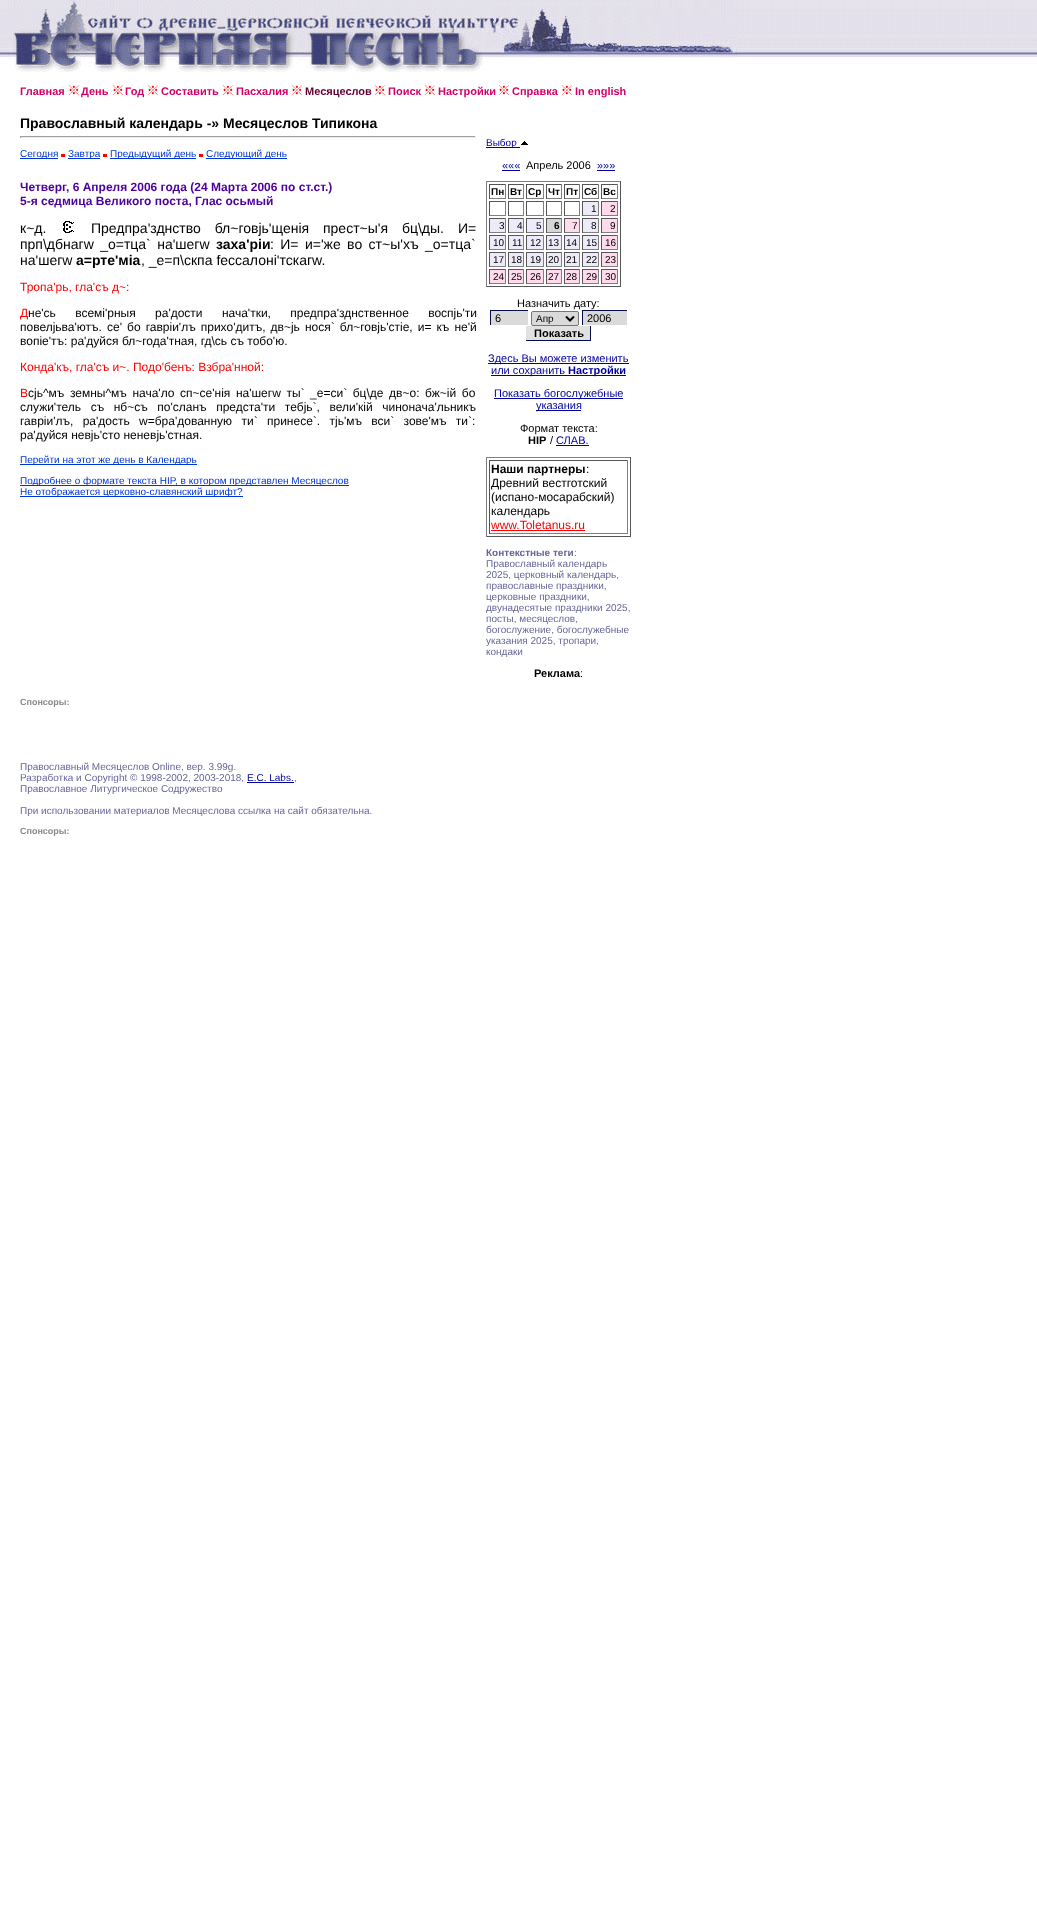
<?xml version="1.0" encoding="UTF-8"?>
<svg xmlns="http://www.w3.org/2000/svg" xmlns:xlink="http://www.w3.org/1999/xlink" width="1037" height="1922">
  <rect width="100%" height="100%" fill="#ffffff" />
  <image x="0" y="0" width="8" height="64" xlink:href="image1.png" />
  <image x="8" y="0" width="290" height="73" xlink:href="image2.png" />
  <image x="298" y="0" width="187" height="74" xlink:href="image3.png" />
  <image x="485" y="57" width="252" height="1" xlink:href="image4.png" />
  <image x="485" y="0" width="252" height="57" xlink:href="image5.png" />
  <image x="737" y="0" width="300" height="64" xlink:href="image6.png" />
  <image x="68" y="85" width="11" height="10" xlink:href="image7.png" />
  <image x="112" y="85" width="11" height="10" xlink:href="image7.png" />
  <image x="147" y="85" width="11" height="10" xlink:href="image7.png" />
  <image x="222" y="85" width="11" height="10" xlink:href="image7.png" />
  <image x="291" y="85" width="11" height="10" xlink:href="image7.png" />
  <image x="374" y="85" width="11" height="10" xlink:href="image7.png" />
  <image x="424" y="85" width="11" height="10" xlink:href="image7.png" />
  <image x="498" y="85" width="11" height="10" xlink:href="image7.png" />
  <image x="561" y="85" width="11" height="10" xlink:href="image7.png" />
  <rect x="20" y="136" width="456" height="1" fill="#9f9f9f" />
  <rect x="475" y="136" width="1" height="2" fill="#eeeeee" />
  <rect x="20" y="137" width="456" height="1" fill="#eeeeee" />
  <rect x="20" y="136" width="1" height="2" fill="#9f9f9f" />
  <rect x="20" y="158" width="38" height="1" fill="#0035d5" />
  <rect x="61" y="154" width="4" height="3" fill="#ff0000" />
  <rect x="68" y="158" width="32" height="1" fill="#0035d5" />
  <rect x="103" y="154" width="4" height="3" fill="#ff0000" />
  <rect x="110" y="158" width="86" height="1" fill="#0035d5" />
  <rect x="199" y="154" width="4" height="3" fill="#ff0000" />
  <rect x="206" y="158" width="81" height="1" fill="#0035d5" />
  <image x="63" y="221" width="11" height="12" xlink:href="image8.png" />
  <rect x="20" y="464" width="177" height="1" fill="#0035d5" />
  <rect x="20" y="485" width="329" height="1" fill="#0035d5" />
  <rect x="20" y="496" width="223" height="1" fill="#0035d5" />
  <rect x="486" y="147" width="34" height="1" fill="#0000a0" />
  <image x="521" y="141" width="7" height="4" xlink:href="image9.png" />
  <rect x="502" y="170" width="18" height="1" fill="#0000a0" />
  <rect x="597" y="170" width="18" height="1" fill="#0000a0" />
  <rect x="486" y="181" width="135" height="1" fill="#808080" />
  <rect x="620" y="181" width="1" height="106" fill="#555555" />
  <rect x="486" y="286" width="135" height="1" fill="#555555" />
  <rect x="486" y="181" width="1" height="106" fill="#808080" />
  <rect x="489" y="184" width="17" height="1" fill="#555555" />
  <rect x="505" y="184" width="1" height="15" fill="#808080" />
  <rect x="489" y="198" width="17" height="1" fill="#808080" />
  <rect x="489" y="184" width="1" height="15" fill="#555555" />
  <rect x="508" y="184" width="16" height="1" fill="#555555" />
  <rect x="523" y="184" width="1" height="15" fill="#808080" />
  <rect x="508" y="198" width="16" height="1" fill="#808080" />
  <rect x="508" y="184" width="1" height="15" fill="#555555" />
  <rect x="526" y="184" width="18" height="1" fill="#555555" />
  <rect x="543" y="184" width="1" height="15" fill="#808080" />
  <rect x="526" y="198" width="18" height="1" fill="#808080" />
  <rect x="526" y="184" width="1" height="15" fill="#555555" />
  <rect x="546" y="184" width="16" height="1" fill="#555555" />
  <rect x="561" y="184" width="1" height="15" fill="#808080" />
  <rect x="546" y="198" width="16" height="1" fill="#808080" />
  <rect x="546" y="184" width="1" height="15" fill="#555555" />
  <rect x="564" y="184" width="16" height="1" fill="#555555" />
  <rect x="579" y="184" width="1" height="15" fill="#808080" />
  <rect x="564" y="198" width="16" height="1" fill="#808080" />
  <rect x="564" y="184" width="1" height="15" fill="#555555" />
  <rect x="582" y="184" width="17" height="1" fill="#555555" />
  <rect x="598" y="184" width="1" height="15" fill="#808080" />
  <rect x="582" y="198" width="17" height="1" fill="#808080" />
  <rect x="582" y="184" width="1" height="15" fill="#555555" />
  <rect x="601" y="184" width="17" height="1" fill="#555555" />
  <rect x="617" y="184" width="1" height="15" fill="#808080" />
  <rect x="601" y="198" width="17" height="1" fill="#808080" />
  <rect x="601" y="184" width="1" height="15" fill="#555555" />
  <rect x="489" y="201" width="17" height="1" fill="#555555" />
  <rect x="505" y="201" width="1" height="15" fill="#808080" />
  <rect x="489" y="215" width="17" height="1" fill="#808080" />
  <rect x="489" y="201" width="1" height="15" fill="#555555" />
  <rect x="508" y="201" width="16" height="1" fill="#555555" />
  <rect x="523" y="201" width="1" height="15" fill="#808080" />
  <rect x="508" y="215" width="16" height="1" fill="#808080" />
  <rect x="508" y="201" width="1" height="15" fill="#555555" />
  <rect x="526" y="201" width="18" height="1" fill="#555555" />
  <rect x="543" y="201" width="1" height="15" fill="#808080" />
  <rect x="526" y="215" width="18" height="1" fill="#808080" />
  <rect x="526" y="201" width="1" height="15" fill="#555555" />
  <rect x="546" y="201" width="16" height="1" fill="#555555" />
  <rect x="561" y="201" width="1" height="15" fill="#808080" />
  <rect x="546" y="215" width="16" height="1" fill="#808080" />
  <rect x="546" y="201" width="1" height="15" fill="#555555" />
  <rect x="564" y="201" width="16" height="1" fill="#555555" />
  <rect x="579" y="201" width="1" height="15" fill="#808080" />
  <rect x="564" y="215" width="16" height="1" fill="#808080" />
  <rect x="564" y="201" width="1" height="15" fill="#555555" />
  <rect x="583" y="202" width="15" height="13" fill="#edebfa" />
  <rect x="582" y="201" width="17" height="1" fill="#555555" />
  <rect x="598" y="201" width="1" height="15" fill="#808080" />
  <rect x="582" y="215" width="17" height="1" fill="#808080" />
  <rect x="582" y="201" width="1" height="15" fill="#555555" />
  <rect x="602" y="202" width="15" height="13" fill="#ffd9ec" />
  <rect x="601" y="201" width="17" height="1" fill="#555555" />
  <rect x="617" y="201" width="1" height="15" fill="#808080" />
  <rect x="601" y="215" width="17" height="1" fill="#808080" />
  <rect x="601" y="201" width="1" height="15" fill="#555555" />
  <rect x="490" y="219" width="15" height="13" fill="#edebfa" />
  <rect x="489" y="218" width="17" height="1" fill="#555555" />
  <rect x="505" y="218" width="1" height="15" fill="#808080" />
  <rect x="489" y="232" width="17" height="1" fill="#808080" />
  <rect x="489" y="218" width="1" height="15" fill="#555555" />
  <rect x="509" y="219" width="14" height="13" fill="#edebfa" />
  <rect x="508" y="218" width="16" height="1" fill="#555555" />
  <rect x="523" y="218" width="1" height="15" fill="#808080" />
  <rect x="508" y="232" width="16" height="1" fill="#808080" />
  <rect x="508" y="218" width="1" height="15" fill="#555555" />
  <rect x="527" y="219" width="16" height="13" fill="#edebfa" />
  <rect x="526" y="218" width="18" height="1" fill="#555555" />
  <rect x="543" y="218" width="1" height="15" fill="#808080" />
  <rect x="526" y="232" width="18" height="1" fill="#808080" />
  <rect x="526" y="218" width="1" height="15" fill="#555555" />
  <rect x="547" y="219" width="14" height="13" fill="#d6d6d6" />
  <rect x="546" y="218" width="16" height="1" fill="#555555" />
  <rect x="561" y="218" width="1" height="15" fill="#808080" />
  <rect x="546" y="232" width="16" height="1" fill="#808080" />
  <rect x="546" y="218" width="1" height="15" fill="#555555" />
  <rect x="565" y="219" width="14" height="13" fill="#ffd9ec" />
  <rect x="564" y="218" width="16" height="1" fill="#555555" />
  <rect x="579" y="218" width="1" height="15" fill="#808080" />
  <rect x="564" y="232" width="16" height="1" fill="#808080" />
  <rect x="564" y="218" width="1" height="15" fill="#555555" />
  <rect x="583" y="219" width="15" height="13" fill="#edebfa" />
  <rect x="582" y="218" width="17" height="1" fill="#555555" />
  <rect x="598" y="218" width="1" height="15" fill="#808080" />
  <rect x="582" y="232" width="17" height="1" fill="#808080" />
  <rect x="582" y="218" width="1" height="15" fill="#555555" />
  <rect x="602" y="219" width="15" height="13" fill="#ffd9ec" />
  <rect x="601" y="218" width="17" height="1" fill="#555555" />
  <rect x="617" y="218" width="1" height="15" fill="#808080" />
  <rect x="601" y="232" width="17" height="1" fill="#808080" />
  <rect x="601" y="218" width="1" height="15" fill="#555555" />
  <rect x="490" y="236" width="15" height="13" fill="#edebfa" />
  <rect x="489" y="235" width="17" height="1" fill="#555555" />
  <rect x="505" y="235" width="1" height="15" fill="#808080" />
  <rect x="489" y="249" width="17" height="1" fill="#808080" />
  <rect x="489" y="235" width="1" height="15" fill="#555555" />
  <rect x="509" y="236" width="14" height="13" fill="#edebfa" />
  <rect x="508" y="235" width="16" height="1" fill="#555555" />
  <rect x="523" y="235" width="1" height="15" fill="#808080" />
  <rect x="508" y="249" width="16" height="1" fill="#808080" />
  <rect x="508" y="235" width="1" height="15" fill="#555555" />
  <rect x="527" y="236" width="16" height="13" fill="#edebfa" />
  <rect x="526" y="235" width="18" height="1" fill="#555555" />
  <rect x="543" y="235" width="1" height="15" fill="#808080" />
  <rect x="526" y="249" width="18" height="1" fill="#808080" />
  <rect x="526" y="235" width="1" height="15" fill="#555555" />
  <rect x="547" y="236" width="14" height="13" fill="#edebfa" />
  <rect x="546" y="235" width="16" height="1" fill="#555555" />
  <rect x="561" y="235" width="1" height="15" fill="#808080" />
  <rect x="546" y="249" width="16" height="1" fill="#808080" />
  <rect x="546" y="235" width="1" height="15" fill="#555555" />
  <rect x="565" y="236" width="14" height="13" fill="#edebfa" />
  <rect x="564" y="235" width="16" height="1" fill="#555555" />
  <rect x="579" y="235" width="1" height="15" fill="#808080" />
  <rect x="564" y="249" width="16" height="1" fill="#808080" />
  <rect x="564" y="235" width="1" height="15" fill="#555555" />
  <rect x="583" y="236" width="15" height="13" fill="#edebfa" />
  <rect x="582" y="235" width="17" height="1" fill="#555555" />
  <rect x="598" y="235" width="1" height="15" fill="#808080" />
  <rect x="582" y="249" width="17" height="1" fill="#808080" />
  <rect x="582" y="235" width="1" height="15" fill="#555555" />
  <rect x="602" y="236" width="15" height="13" fill="#ffd9ec" />
  <rect x="601" y="235" width="17" height="1" fill="#555555" />
  <rect x="617" y="235" width="1" height="15" fill="#808080" />
  <rect x="601" y="249" width="17" height="1" fill="#808080" />
  <rect x="601" y="235" width="1" height="15" fill="#555555" />
  <rect x="490" y="253" width="15" height="13" fill="#edebfa" />
  <rect x="489" y="252" width="17" height="1" fill="#555555" />
  <rect x="505" y="252" width="1" height="15" fill="#808080" />
  <rect x="489" y="266" width="17" height="1" fill="#808080" />
  <rect x="489" y="252" width="1" height="15" fill="#555555" />
  <rect x="509" y="253" width="14" height="13" fill="#edebfa" />
  <rect x="508" y="252" width="16" height="1" fill="#555555" />
  <rect x="523" y="252" width="1" height="15" fill="#808080" />
  <rect x="508" y="266" width="16" height="1" fill="#808080" />
  <rect x="508" y="252" width="1" height="15" fill="#555555" />
  <rect x="527" y="253" width="16" height="13" fill="#edebfa" />
  <rect x="526" y="252" width="18" height="1" fill="#555555" />
  <rect x="543" y="252" width="1" height="15" fill="#808080" />
  <rect x="526" y="266" width="18" height="1" fill="#808080" />
  <rect x="526" y="252" width="1" height="15" fill="#555555" />
  <rect x="547" y="253" width="14" height="13" fill="#edebfa" />
  <rect x="546" y="252" width="16" height="1" fill="#555555" />
  <rect x="561" y="252" width="1" height="15" fill="#808080" />
  <rect x="546" y="266" width="16" height="1" fill="#808080" />
  <rect x="546" y="252" width="1" height="15" fill="#555555" />
  <rect x="565" y="253" width="14" height="13" fill="#edebfa" />
  <rect x="564" y="252" width="16" height="1" fill="#555555" />
  <rect x="579" y="252" width="1" height="15" fill="#808080" />
  <rect x="564" y="266" width="16" height="1" fill="#808080" />
  <rect x="564" y="252" width="1" height="15" fill="#555555" />
  <rect x="583" y="253" width="15" height="13" fill="#edebfa" />
  <rect x="582" y="252" width="17" height="1" fill="#555555" />
  <rect x="598" y="252" width="1" height="15" fill="#808080" />
  <rect x="582" y="266" width="17" height="1" fill="#808080" />
  <rect x="582" y="252" width="1" height="15" fill="#555555" />
  <rect x="602" y="253" width="15" height="13" fill="#ffd9ec" />
  <rect x="601" y="252" width="17" height="1" fill="#555555" />
  <rect x="617" y="252" width="1" height="15" fill="#808080" />
  <rect x="601" y="266" width="17" height="1" fill="#808080" />
  <rect x="601" y="252" width="1" height="15" fill="#555555" />
  <rect x="490" y="270" width="15" height="13" fill="#ffd9ec" />
  <rect x="489" y="269" width="17" height="1" fill="#555555" />
  <rect x="505" y="269" width="1" height="15" fill="#808080" />
  <rect x="489" y="283" width="17" height="1" fill="#808080" />
  <rect x="489" y="269" width="1" height="15" fill="#555555" />
  <rect x="509" y="270" width="14" height="13" fill="#ffd9ec" />
  <rect x="508" y="269" width="16" height="1" fill="#555555" />
  <rect x="523" y="269" width="1" height="15" fill="#808080" />
  <rect x="508" y="283" width="16" height="1" fill="#808080" />
  <rect x="508" y="269" width="1" height="15" fill="#555555" />
  <rect x="527" y="270" width="16" height="13" fill="#ffd9ec" />
  <rect x="526" y="269" width="18" height="1" fill="#555555" />
  <rect x="543" y="269" width="1" height="15" fill="#808080" />
  <rect x="526" y="283" width="18" height="1" fill="#808080" />
  <rect x="526" y="269" width="1" height="15" fill="#555555" />
  <rect x="547" y="270" width="14" height="13" fill="#ffd9ec" />
  <rect x="546" y="269" width="16" height="1" fill="#555555" />
  <rect x="561" y="269" width="1" height="15" fill="#808080" />
  <rect x="546" y="283" width="16" height="1" fill="#808080" />
  <rect x="546" y="269" width="1" height="15" fill="#555555" />
  <rect x="565" y="270" width="14" height="13" fill="#ffd9ec" />
  <rect x="564" y="269" width="16" height="1" fill="#555555" />
  <rect x="579" y="269" width="1" height="15" fill="#808080" />
  <rect x="564" y="283" width="16" height="1" fill="#808080" />
  <rect x="564" y="269" width="1" height="15" fill="#555555" />
  <rect x="583" y="270" width="15" height="13" fill="#ffd9ec" />
  <rect x="582" y="269" width="17" height="1" fill="#555555" />
  <rect x="598" y="269" width="1" height="15" fill="#808080" />
  <rect x="582" y="283" width="17" height="1" fill="#808080" />
  <rect x="582" y="269" width="1" height="15" fill="#555555" />
  <rect x="602" y="270" width="15" height="13" fill="#ffd9ec" />
  <rect x="601" y="269" width="17" height="1" fill="#555555" />
  <rect x="617" y="269" width="1" height="15" fill="#808080" />
  <rect x="601" y="283" width="17" height="1" fill="#808080" />
  <rect x="601" y="269" width="1" height="15" fill="#555555" />
  <rect x="491" y="311" width="37" height="14" fill="#dadada" />
  <rect x="490" y="310" width="38" height="1" fill="#040d48" />
  <rect x="490" y="310" width="1" height="15" fill="#040d48" />
  <rect x="531.5" y="311.5" width="47" height="14" rx="1.5" fill="#dadada" stroke="#767676" />
  <path d="M 566 316.5 l 4 4 l 4 -4" fill="none" stroke="#000000" stroke-width="2" />
  <rect x="583" y="311" width="44" height="14" fill="#dadada" />
  <rect x="582" y="310" width="45" height="1" fill="#040d48" />
  <rect x="582" y="310" width="1" height="15" fill="#040d48" />
  <rect x="526" y="326" width="64" height="14" fill="#e1e1e1" />
  <rect x="590" y="326" width="1" height="15" fill="#040d48" />
  <rect x="526" y="340" width="65" height="1" fill="#040d48" />
  <rect x="488" y="363" width="141" height="1" fill="#0000a0" />
  <rect x="491" y="375" width="135" height="1" fill="#0000a0" />
  <rect x="494" y="398" width="129" height="1" fill="#0000a0" />
  <rect x="536" y="410" width="45" height="1" fill="#0000a0" />
  <rect x="556" y="445" width="33" height="1" fill="#0000a0" />
  <rect x="486" y="457" width="145" height="1" fill="#808080" />
  <rect x="630" y="457" width="1" height="80" fill="#555555" />
  <rect x="486" y="536" width="145" height="1" fill="#555555" />
  <rect x="486" y="457" width="1" height="80" fill="#808080" />
  <rect x="489" y="460" width="139" height="1" fill="#555555" />
  <rect x="627" y="460" width="1" height="74" fill="#808080" />
  <rect x="489" y="533" width="139" height="1" fill="#808080" />
  <rect x="489" y="460" width="1" height="74" fill="#555555" />
  <rect x="491" y="530" width="94" height="1" fill="#ff0000" />
  <rect x="247" y="782" width="47" height="1" fill="#0000a0" />
  <text x="20" y="95" style="font-family: Liberation Sans; font-size: 11px; font-weight: bold; fill: #d20069">Главная</text>
  <text x="81" y="95" style="font-family: Liberation Sans; font-size: 11px; font-weight: bold; fill: #d20069">День</text>
  <text x="125" y="95" style="font-family: Liberation Sans; font-size: 11px; font-weight: bold; fill: #d20069">Год</text>
  <text x="161" y="95" style="font-family: Liberation Sans; font-size: 11px; font-weight: bold; fill: #d20069">Составить</text>
  <text x="236" y="95" style="font-family: Liberation Sans; font-size: 11px; font-weight: bold; fill: #d20069">Пасхалия</text>
  <text x="305" y="95" style="font-family: Liberation Sans; font-size: 11px; font-weight: bold; fill: #660033">Месяцеслов</text>
  <text x="388" y="95" style="font-family: Liberation Sans; font-size: 11px; font-weight: bold; fill: #d20069">Поиск</text>
  <text x="438" y="95" style="font-family: Liberation Sans; font-size: 11px; font-weight: bold; fill: #d20069">Настройки</text>
  <text x="512" y="95" style="font-family: Liberation Sans; font-size: 11px; font-weight: bold; fill: #d20069">Справка</text>
  <text x="575" y="95" style="font-family: Liberation Sans; font-size: 11px; font-weight: bold; fill: #d20069">In english</text>
  <text x="20" y="128" style="font-family: Liberation Sans; font-size: 14px; font-weight: bold; fill: #000000">Православный календарь -» Месяцеслов Типикона</text>
  <text x="20" y="157" style="font-family: Liberation Sans; font-size: 10px; fill: #0035d5">Сегодня</text>
  <text x="68" y="157" style="font-family: Liberation Sans; font-size: 10px; fill: #0035d5">Завтра</text>
  <text x="110" y="157" style="font-family: Liberation Sans; font-size: 10px; fill: #0035d5">Предыдущий день</text>
  <text x="206" y="157" style="font-family: Liberation Sans; font-size: 10px; fill: #0035d5">Следующий день</text>
  <text x="20" y="191" style="font-family: Liberation Sans; font-size: 12px; font-weight: bold; fill: #4e009b">Четверг, 6 Апреля 2006 года (24 Марта 2006 по ст.ст.)</text>
  <text x="20" y="205" style="font-family: Liberation Sans; font-size: 12px; font-weight: bold; fill: #4e009b">5-я седмица Великого поста, Глас осьмый</text>
  <text x="20" y="233" style="font-family: Liberation Sans; font-size: 14px; fill: #000000">к~д.</text>
  <text x="91" y="233" word-spacing="10" style="font-family: Liberation Sans; font-size: 14px; fill: #000000">Предпра'зднство бл~говjь'щенiя прест~ы'я бц\ды. И=</text>
  <text x="20" y="249" word-spacing="2.5" style="font-family: Liberation Sans; font-size: 14px; fill: #000000">прп\дбнагw _о=тца` на'шегw</text>
  <text x="216" y="249" style="font-family: Liberation Sans; font-size: 14px; font-weight: bold; fill: #000000">заха'рiи</text>
  <text x="270" y="249" word-spacing="2.5" style="font-family: Liberation Sans; font-size: 14px; fill: #000000">: И= и='же во ст~ы'хъ _о=тца`</text>
  <text x="20" y="265" style="font-family: Liberation Sans; font-size: 14px; fill: #000000">на'шегw</text>
  <text x="76" y="265" style="font-family: Liberation Sans; font-size: 14px; font-weight: bold; fill: #000000">а=рте'мiа</text>
  <text x="141" y="265" style="font-family: Liberation Sans; font-size: 14px; fill: #000000">, _е=п\скпа fессалонi'тскагw.</text>
  <text x="20" y="291" style="font-family: Liberation Sans; font-size: 12px; fill: #ff0000">Тропа'рь, гла'съ д~:</text>
  <text x="20" y="317" style="font-family: Liberation Sans; font-size: 12px; fill: #ff0000">Д</text>
  <text x="28" y="317" word-spacing="16" style="font-family: Liberation Sans; font-size: 12px; fill: #000000">не'сь всемi'рныя ра'дости нача'тки, предпра'зднственное воспjь'ти</text>
  <text x="20" y="331" word-spacing="1.75" style="font-family: Liberation Sans; font-size: 12px; fill: #000000">повелjьва'ютъ. се' бо гаврiи'лъ прихо'дитъ, дв~jь нося` бл~говjь'стiе, и= къ не'й</text>
  <text x="20" y="345" style="font-family: Liberation Sans; font-size: 12px; fill: #000000">вопiе'тъ: ра'дуйся бл~года'тная, гд\сь съ тобо'ю.</text>
  <text x="20" y="371" style="font-family: Liberation Sans; font-size: 12px; fill: #ff0000">Конда'къ, гла'съ и~. Подо'бенъ: Взбра'нной:</text>
  <text x="20" y="397" style="font-family: Liberation Sans; font-size: 12px; fill: #ff0000">В</text>
  <text x="28" y="397" word-spacing="2.25" style="font-family: Liberation Sans; font-size: 12px; fill: #000000">сjь^мъ земны^мъ нача'ло сп~се'нiя на'шегw ты` _е=си` бц\де дв~о: бж~iй бо</text>
  <text x="20" y="411" word-spacing="6.25" style="font-family: Liberation Sans; font-size: 12px; fill: #000000">служи'тель съ нб~съ по'сланъ предста'ти тебjь`, вели'кiй чинонача'льникъ</text>
  <text x="20" y="425" word-spacing="6" style="font-family: Liberation Sans; font-size: 12px; fill: #000000">гаврiи'лъ, ра'дость w=бра'дованную ти` принесе`. тjь'мъ вси` зове'мъ ти`:</text>
  <text x="20" y="439" style="font-family: Liberation Sans; font-size: 12px; fill: #000000">ра'дуйся невjь'сто неневjь'стная.</text>
  <text x="20" y="463" style="font-family: Liberation Sans; font-size: 10px; fill: #0035d5">Перейти на этот же день в Календарь</text>
  <text x="20" y="484" style="font-family: Liberation Sans; font-size: 10px; fill: #0035d5">Подробнее о формате текста HIP, в котором представлен Месяцеслов</text>
  <text x="20" y="495" style="font-family: Liberation Sans; font-size: 10px; fill: #0035d5">Не отображается церковно-славянский шрифт?</text>
  <text x="486" y="146" style="font-family: Liberation Sans; font-size: 10px; fill: #0000a0">Выбор</text>
  <text x="502" y="169" style="font-family: Liberation Sans; font-size: 11px; fill: #0000a0">«««</text>
  <text x="526" y="169" style="font-family: Liberation Sans; font-size: 11px; fill: #000000">Апрель 2006</text>
  <text x="597" y="169" style="font-family: Liberation Sans; font-size: 11px; fill: #0000a0">»»»</text>
  <text x="491" y="195" style="font-family: Liberation Sans; font-size: 10px; font-weight: bold; fill: #000000">Пн</text>
  <text x="510" y="195" style="font-family: Liberation Sans; font-size: 10px; font-weight: bold; fill: #000000">Вт</text>
  <text x="528" y="195" style="font-family: Liberation Sans; font-size: 10px; font-weight: bold; fill: #000000">Ср</text>
  <text x="548" y="195" style="font-family: Liberation Sans; font-size: 10px; font-weight: bold; fill: #000000">Чт</text>
  <text x="566" y="195" style="font-family: Liberation Sans; font-size: 10px; font-weight: bold; fill: #000000">Пт</text>
  <text x="584" y="195" style="font-family: Liberation Sans; font-size: 10px; font-weight: bold; fill: #000000">Сб</text>
  <text x="603" y="195" style="font-family: Liberation Sans; font-size: 10px; font-weight: bold; fill: #000000">Вс</text>
  <text x="591" y="212" style="font-family: Liberation Sans; font-size: 10px; fill: #000000">1</text>
  <text x="610" y="212" style="font-family: Liberation Sans; font-size: 10px; fill: #000000">2</text>
  <text x="499" y="229" style="font-family: Liberation Sans; font-size: 10px; fill: #000000">3</text>
  <text x="517" y="229" style="font-family: Liberation Sans; font-size: 10px; fill: #000000">4</text>
  <text x="536" y="229" style="font-family: Liberation Sans; font-size: 10px; fill: #000000">5</text>
  <text x="554" y="229" style="font-family: Liberation Sans; font-size: 10px; font-weight: bold; fill: #000000">6</text>
  <text x="572" y="229" style="font-family: Liberation Sans; font-size: 10px; fill: #000000">7</text>
  <text x="591" y="229" style="font-family: Liberation Sans; font-size: 10px; fill: #000000">8</text>
  <text x="610" y="229" style="font-family: Liberation Sans; font-size: 10px; fill: #000000">9</text>
  <text x="493" y="246" style="font-family: Liberation Sans; font-size: 10px; fill: #000000">10</text>
  <text x="512" y="246" style="font-family: Liberation Sans; font-size: 10px; fill: #000000">11</text>
  <text x="530" y="246" style="font-family: Liberation Sans; font-size: 10px; fill: #000000">12</text>
  <text x="548" y="246" style="font-family: Liberation Sans; font-size: 10px; fill: #000000">13</text>
  <text x="566" y="246" style="font-family: Liberation Sans; font-size: 10px; fill: #000000">14</text>
  <text x="586" y="246" style="font-family: Liberation Sans; font-size: 10px; fill: #000000">15</text>
  <text x="605" y="246" style="font-family: Liberation Sans; font-size: 10px; fill: #000000">16</text>
  <text x="493" y="263" style="font-family: Liberation Sans; font-size: 10px; fill: #000000">17</text>
  <text x="511" y="263" style="font-family: Liberation Sans; font-size: 10px; fill: #000000">18</text>
  <text x="530" y="263" style="font-family: Liberation Sans; font-size: 10px; fill: #000000">19</text>
  <text x="548" y="263" style="font-family: Liberation Sans; font-size: 10px; fill: #000000">20</text>
  <text x="566" y="263" style="font-family: Liberation Sans; font-size: 10px; fill: #000000">21</text>
  <text x="586" y="263" style="font-family: Liberation Sans; font-size: 10px; fill: #000000">22</text>
  <text x="605" y="263" style="font-family: Liberation Sans; font-size: 10px; fill: #000000">23</text>
  <text x="493" y="280" style="font-family: Liberation Sans; font-size: 10px; fill: #000000">24</text>
  <text x="511" y="280" style="font-family: Liberation Sans; font-size: 10px; fill: #000000">25</text>
  <text x="530" y="280" style="font-family: Liberation Sans; font-size: 10px; fill: #000000">26</text>
  <text x="548" y="280" style="font-family: Liberation Sans; font-size: 10px; fill: #000000">27</text>
  <text x="566" y="280" style="font-family: Liberation Sans; font-size: 10px; fill: #000000">28</text>
  <text x="586" y="280" style="font-family: Liberation Sans; font-size: 10px; fill: #000000">29</text>
  <text x="605" y="280" style="font-family: Liberation Sans; font-size: 10px; fill: #000000">30</text>
  <text x="517" y="307" style="font-family: Liberation Sans; font-size: 11px; fill: #000000">Назначить дату:</text>
  <text x="495" y="322" style="font-family: Liberation Sans; font-size: 11px; fill: #000000">6</text>
  <text x="536" y="322" style="font-family: Liberation Sans; font-size: 10px; fill: #000000">Апр</text>
  <text x="587" y="322" style="font-family: Liberation Sans; font-size: 11px; fill: #000000">2006</text>
  <text x="534" y="337" style="font-family: Liberation Sans; font-size: 11px; font-weight: bold; fill: #000000">Показать</text>
  <text x="488" y="362" style="font-family: Liberation Sans; font-size: 11px; fill: #0000a0">Здесь Вы можете изменить</text>
  <text x="491" y="374" style="font-family: Liberation Sans; font-size: 11px; fill: #0000a0">или сохранить</text>
  <text x="568" y="374" style="font-family: Liberation Sans; font-size: 11px; font-weight: bold; fill: #0000a0">Настройки</text>
  <text x="494" y="397" style="font-family: Liberation Sans; font-size: 11px; fill: #0000a0">Показать богослужебные</text>
  <text x="536" y="409" style="font-family: Liberation Sans; font-size: 11px; fill: #0000a0">указания</text>
  <text x="520" y="432" style="font-family: Liberation Sans; font-size: 11px; fill: #000000">Формат текста:</text>
  <text x="528" y="444" style="font-family: Liberation Sans; font-size: 11px; font-weight: bold; fill: #000000">HIP</text>
  <text x="550" y="444" style="font-family: Liberation Sans; font-size: 11px; fill: #000000">/</text>
  <text x="556" y="444" style="font-family: Liberation Sans; font-size: 11px; fill: #0000a0">СЛАВ.</text>
  <text x="491" y="473" style="font-family: Liberation Sans; font-size: 12px; font-weight: bold; fill: #000000">Наши партнеры</text>
  <text x="586" y="473" style="font-family: Liberation Sans; font-size: 12px; fill: #000000">:</text>
  <text x="491" y="487" style="font-family: Liberation Sans; font-size: 12px; fill: #000000">Древний вестготский</text>
  <text x="491" y="501" style="font-family: Liberation Sans; font-size: 12px; fill: #000000">(испано-мосарабский)</text>
  <text x="491" y="515" style="font-family: Liberation Sans; font-size: 12px; fill: #000000">календарь</text>
  <text x="491" y="529" style="font-family: Liberation Sans; font-size: 12px; fill: #ff0000">www.Toletanus.ru</text>
  <text x="486" y="556" style="font-family: Liberation Sans; font-size: 10px; font-weight: bold; fill: #666699">Контекстные теги</text>
  <text x="574" y="556" style="font-family: Liberation Sans; font-size: 10px; fill: #666699">:</text>
  <text x="486" y="567" style="font-family: Liberation Sans; font-size: 10px; fill: #666699">Православный календарь</text>
  <text x="486" y="578" style="font-family: Liberation Sans; font-size: 10px; fill: #666699">2025, церковный календарь,</text>
  <text x="486" y="589" style="font-family: Liberation Sans; font-size: 10px; fill: #666699">православные праздники,</text>
  <text x="486" y="600" style="font-family: Liberation Sans; font-size: 10px; fill: #666699">церковные праздники,</text>
  <text x="486" y="611" style="font-family: Liberation Sans; font-size: 10px; fill: #666699">двунадесятые праздники 2025,</text>
  <text x="486" y="622" style="font-family: Liberation Sans; font-size: 10px; fill: #666699">посты, месяцеслов,</text>
  <text x="486" y="633" style="font-family: Liberation Sans; font-size: 10px; fill: #666699">богослужение, богослужебные</text>
  <text x="486" y="644" style="font-family: Liberation Sans; font-size: 10px; fill: #666699">указания 2025, тропари,</text>
  <text x="486" y="655" style="font-family: Liberation Sans; font-size: 10px; fill: #666699">кондаки</text>
  <text x="534" y="677" style="font-family: Liberation Sans; font-size: 11px; font-weight: bold; fill: #000000">Реклама</text>
  <text x="580" y="677" style="font-family: Liberation Sans; font-size: 11px; fill: #000000">:</text>
  <text x="20" y="705" style="font-family: Liberation Sans; font-size: 9px; font-weight: bold; fill: #89898a">Спонсоры:</text>
  <text x="20" y="770" style="font-family: Liberation Sans; font-size: 10px; fill: #666699">Православный Месяцеслов Online, вер. 3.99g.</text>
  <text x="20" y="781" style="font-family: Liberation Sans; font-size: 10px; fill: #666699">Разработка и Copyright © 1998-2002, 2003-2018,</text>
  <text x="247" y="781" style="font-family: Liberation Sans; font-size: 10px; fill: #0000a0">E.C. Labs.</text>
  <text x="294" y="781" style="font-family: Liberation Sans; font-size: 10px; fill: #666699">,</text>
  <text x="20" y="792" style="font-family: Liberation Sans; font-size: 10px; fill: #666699">Православное Литургическое Содружество</text>
  <text x="20" y="814" style="font-family: Liberation Sans; font-size: 10px; fill: #666699">При использовании материалов Месяцеслова ссылка на сайт обязательна.</text>
  <text x="20" y="834" style="font-family: Liberation Sans; font-size: 9px; font-weight: bold; fill: #89898a">Спонсоры:</text>
</svg>
